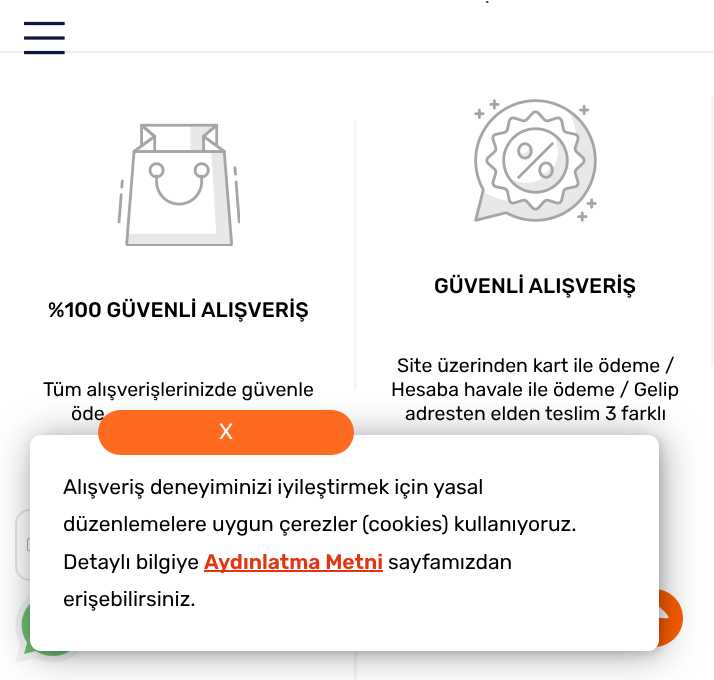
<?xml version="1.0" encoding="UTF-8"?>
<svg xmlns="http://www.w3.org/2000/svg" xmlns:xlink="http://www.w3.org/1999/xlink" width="714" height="680">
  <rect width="100%" height="100%" fill="#ffffff" />
  <rect y="51" width="714" height="2" fill="#eeeeee" />
  <image x="24" y="21" width="41" height="34" xlink:href="image1.png" />
  <image x="117" y="123" width="123" height="123" xlink:href="image2.png" />
  <rect x="354" y="120" width="3" height="270" rx="1.5" fill="#f5f5f5" />
  <image x="474" y="99" width="123" height="123" xlink:href="image3.png" />
  <rect x="711" y="96" width="3" height="270" rx="1.5" fill="#f5f5f5" />
  <rect x="354" y="651" width="3" height="29" fill="#f5f5f5" />
  <rect x="16" y="510" width="186" height="70" rx="14" fill="none" stroke="#dddddd" stroke-opacity="0.8" stroke-width="2" />
  <image x="26" y="538" width="4" height="17" xlink:href="image4.png" />
  <image x="15" y="595" width="65" height="68" xlink:href="image5.png" />
  <path d="M 625 618 c 0 -6 2 -13 6 -18 c 17 -22 52 -9 52 18 c 0 27 -35 40 -52 18 c -4 -5 -6 -12 -6 -18 z m 34 14 v -14 c 10 0 13 2 5 -7 l -10 -9 l -10 9 c -8 9 -5 7 5 7 v 11 c 0 5 0 4 4 4 c 1 0 6 1 6 -1 z" fill="#fd5f00" />
  <rect x="33" y="438" width="629" height="216" rx="11" fill="#000000" fill-opacity="0.37" filter="blur(19px)" />
  <rect x="33" y="438" width="629" height="216" rx="11" fill="#000000" fill-opacity="0.12" filter="blur(4px)" />
  <rect x="31.5" y="436.5" width="626" height="213" rx="9.5" fill="#ffffff" stroke="#ffffff" stroke-width="3" />
  <rect x="204" y="570" width="179" height="2" fill="#e43511" />
  <text x="485" y="3" style="font-family: Rubik; font-size: 18px; fill: #393e46">.</text>
  <text x="48" y="317" style="font-family: Rubik; font-size: 21px; font-weight: 500; fill: #000000">%100 GÜVENLİ ALIŞVERİŞ</text>
  <text x="43" y="396" style="font-family: Rubik; font-size: 19.5px; fill: #000000">Tüm alışverişlerinizde güvenle</text>
  <text x="71" y="420" style="font-family: Rubik; font-size: 19.5px; fill: #000000">öde</text>
  <text x="434" y="293" style="font-family: Rubik; font-size: 21px; font-weight: 500; fill: #000000">GÜVENLİ ALIŞVERİŞ</text>
  <text x="397" y="372" style="font-family: Rubik; font-size: 19.5px; fill: #000000">Site üzerinden kart ile ödeme /</text>
  <text x="391" y="396" style="font-family: Rubik; font-size: 19.5px; fill: #000000">Hesaba havale ile ödeme / Gelip</text>
  <text x="405" y="420" style="font-family: Rubik; font-size: 19.5px; fill: #000000">adresten elden teslim 3 farklı</text>
  <rect x="98" y="410" width="256" height="45" rx="22.5" fill="#ff6a21" />
  <text x="219" y="439" style="font-family: Rubik; font-size: 22px; fill: #ffffff">X</text>
  <text x="63" y="494" style="font-family: Rubik; font-size: 21px; fill: #000000">Alışveriş deneyiminizi iyileştirmek için yasal</text>
  <text x="63" y="531" style="font-family: Rubik; font-size: 21px; fill: #000000">düzenlemelere uygun çerezler (cookies) kullanıyoruz.</text>
  <text x="63" y="569" style="font-family: Rubik; font-size: 21px; fill: #000000">Detaylı bilgiye</text>
  <text x="204" y="569" style="font-family: Rubik; font-size: 21px; font-weight: 600; fill: #e43511">Aydınlatma Metni</text>
  <text x="388" y="569" style="font-family: Rubik; font-size: 21px; fill: #000000">sayfamızdan</text>
  <text x="63" y="606" style="font-family: Rubik; font-size: 21px; fill: #000000">erişebilirsiniz.</text>
</svg>
